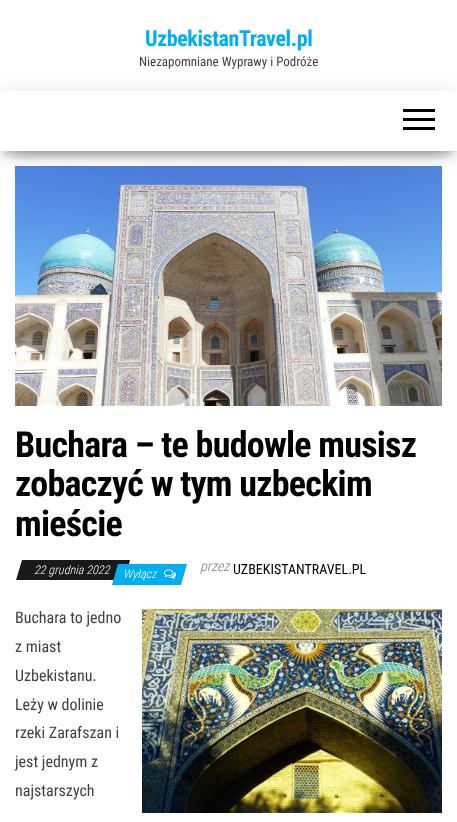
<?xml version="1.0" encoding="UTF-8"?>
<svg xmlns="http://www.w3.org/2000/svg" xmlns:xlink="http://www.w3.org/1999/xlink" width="457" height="822">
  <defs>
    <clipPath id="clip1"><rect x="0" y="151" width="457" height="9" /></clipPath>
    <clipPath id="clip2"><path d="M 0 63 h 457 v 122 h -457 z m 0 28 h 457 v 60 h -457 z" clip-rule="evenodd" /></clipPath>
    <clipPath id="clip3"><rect x="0" y="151" width="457" height="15" /></clipPath>
  </defs>
  <rect width="100%" height="100%" fill="#ffffff" />
  <g clip-path="url(#clip1)">
    <rect x="5" y="104" width="447" height="50" fill="#000000" fill-opacity="0.2" filter="blur(5px)" />
  </g>
  <g clip-path="url(#clip2)">
    <rect y="94" width="457" height="60" fill="#000000" fill-opacity="0.12" filter="blur(10px)" />
  </g>
  <g clip-path="url(#clip3)">
    <rect x="12" y="113" width="433" height="36" fill="#000000" fill-opacity="0.42" filter="blur(10px)" />
  </g>
  <rect x="403" y="109" width="32" height="3" fill="#000000" />
  <rect x="403" y="118" width="32" height="3" fill="#000000" />
  <rect x="403" y="127" width="32" height="3" fill="#000000" />
  <image x="15" y="166" width="427" height="240" xlink:href="image1.png" />
  <path d="M 22 560 h 108 l -5 20 h -109 z" fill="#191919" />
  <path d="M 118 564 h 69 l -6 21 h -69 z" fill="#00aff2" />
  <image x="164" y="569" width="12" height="10" xlink:href="image2.png" />
  <image x="142" y="609" width="300" height="204" xlink:href="image3.png" />
  <text x="145" y="46" style="font-family: Roboto Condensed; font-size: 22px; font-weight: bold; letter-spacing: -0.4px; fill: #00aff2">UzbekistanTravel.pl</text>
  <text x="139" y="66" style="font-family: Roboto Condensed; font-size: 13px; fill: #404040">Niezapomniane Wyprawy i Podróże</text>
  <text x="15" y="457" style="font-family: Roboto Condensed; font-size: 36px; font-weight: bold; letter-spacing: -0.75px; fill: #000000">Buchara – te budowle musisz</text>
  <text x="15" y="496" style="font-family: Roboto Condensed; font-size: 36px; font-weight: bold; letter-spacing: -0.75px; fill: #000000">zobaczyć w tym uzbeckim</text>
  <text x="15" y="536" style="font-family: Roboto Condensed; font-size: 36px; font-weight: bold; letter-spacing: -0.75px; fill: #000000">mieście</text>
  <text x="34" y="574" style="font-family: Roboto Condensed; font-size: 12px; font-weight: 300; font-style: italic; fill: #ffffff">22 grudnia 2022</text>
  <text x="123" y="578" style="font-family: Roboto Condensed; font-size: 12px; font-weight: 300; font-style: italic; fill: #ffffff">Wyłącz</text>
  <text x="200" y="571" style="font-family: Roboto Condensed; font-size: 14px; font-weight: 300; font-style: italic; fill: #797979">przez</text>
  <text x="233" y="574" style="font-family: Roboto Condensed; font-size: 14px; fill: #000000">UZBEKISTANTRAVEL.PL</text>
  <text x="15" y="623" style="font-family: Roboto Condensed; font-size: 16px; fill: #404040">Buchara to jedno</text>
  <text x="15" y="652" style="font-family: Roboto Condensed; font-size: 16px; fill: #404040">z miast</text>
  <text x="15" y="681" style="font-family: Roboto Condensed; font-size: 16px; fill: #404040">Uzbekistanu.</text>
  <text x="15" y="710" style="font-family: Roboto Condensed; font-size: 16px; fill: #404040">Leży w dolinie</text>
  <text x="15" y="738" style="font-family: Roboto Condensed; font-size: 16px; fill: #404040">rzeki Zarafszan i</text>
  <text x="15" y="767" style="font-family: Roboto Condensed; font-size: 16px; fill: #404040">jest jednym z</text>
  <text x="15" y="796" style="font-family: Roboto Condensed; font-size: 16px; fill: #404040">najstarszych</text>
</svg>
